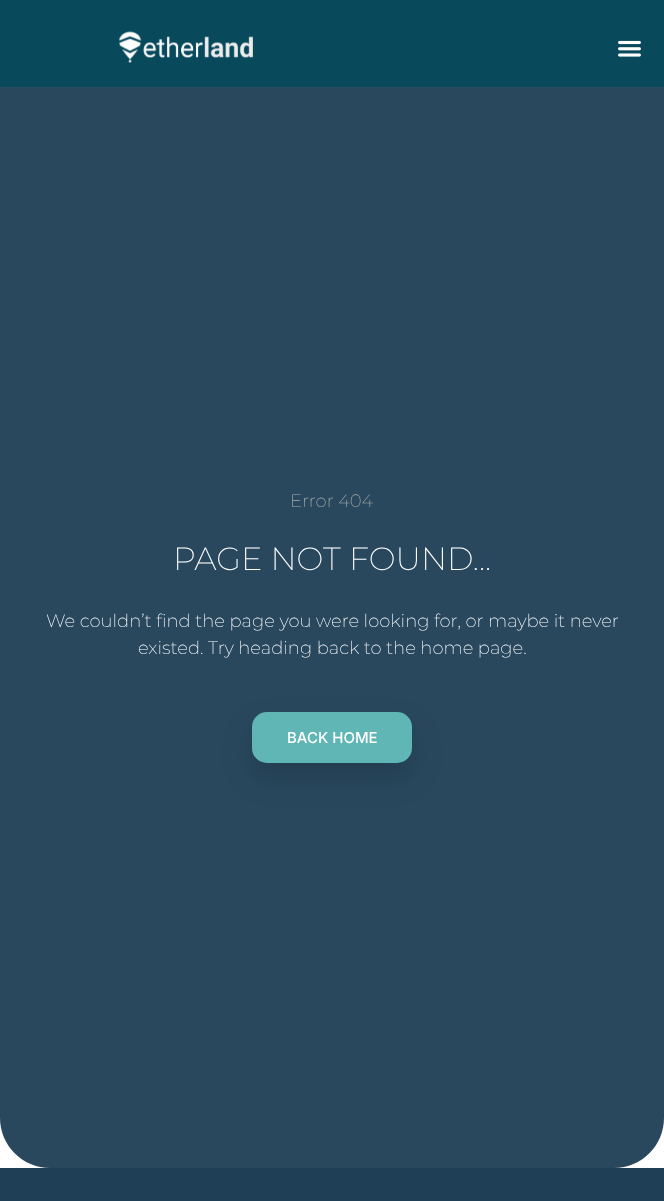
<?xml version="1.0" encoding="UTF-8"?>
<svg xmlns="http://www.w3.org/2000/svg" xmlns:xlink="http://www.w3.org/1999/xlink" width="664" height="1201">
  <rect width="100%" height="100%" fill="#ffffff" />
  <rect width="664" height="87" fill="#08495b" />
  <image x="118" y="31" width="135" height="32" xlink:href="image1.png" />
  <image x="618" y="40" width="23" height="17" xlink:href="image2.png" />
  <path d="M 0 87 h 664 v 1031 c 0 27.5 -22.5 50 -50 50 h -564 c -27.5 0 -50 -22.5 -50 -50 z" fill="#1e3f56" />
  <rect y="87" width="664" height="1081" fill="#ffffff" fill-opacity="0.05" />
  <rect x="252" y="727" width="160" height="51" rx="15" fill="#000000" fill-opacity="0.15" filter="blur(15px)" />
  <rect x="252" y="712" width="160" height="51" rx="15" fill="#5fb6b5" />
  <rect y="1168" width="664" height="33" fill="#1e3f56" />
  <text x="290" y="507" style="font-family: Montserrat; font-size: 18px; font-weight: 200; fill: #adadad">Error 404</text>
  <text x="173" y="570" style="font-family: Montserrat; font-size: 32px; font-weight: 200; fill: #ffffff">PAGE NOT FOUND...</text>
  <text x="46" y="627" style="font-family: Montserrat; font-size: 18px; font-weight: 200; fill: #ffffff">We couldn’t find the page you were looking for, or maybe it never</text>
  <text x="138" y="654" style="font-family: Montserrat; font-size: 18px; font-weight: 200; fill: #ffffff">existed. Try heading back to the home page.</text>
  <text x="287" y="743" style="font-family: Inter; font-size: 15px; font-weight: 500; fill: #ffffff">BACK HOME</text>
</svg>
